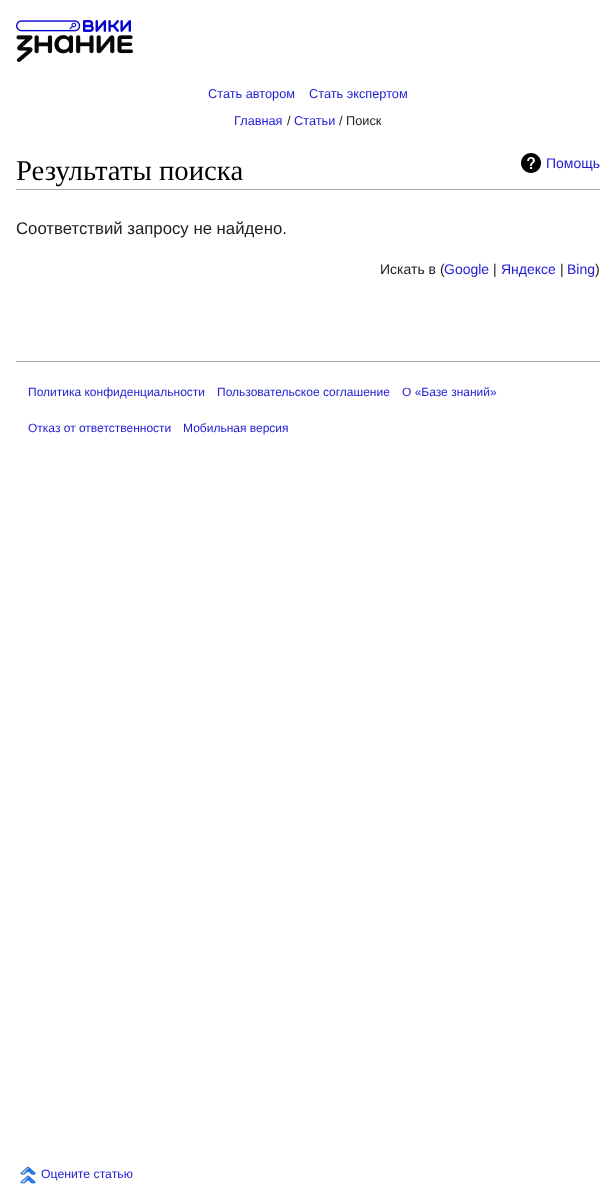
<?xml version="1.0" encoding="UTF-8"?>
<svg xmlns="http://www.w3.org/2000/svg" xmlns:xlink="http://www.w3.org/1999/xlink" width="616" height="1195">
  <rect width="100%" height="100%" fill="#ffffff" />
  <image x="16" y="20" width="117" height="42" xlink:href="image1.png" />
  <image x="20" y="1166" width="16" height="18" xlink:href="image2.png" />
  <rect x="16" y="189" width="584" height="1" fill="#a2a9b1" />
  <image x="521" y="153" width="20" height="20" xlink:href="image3.png" />
  <rect x="16" y="361" width="584" height="1" fill="#a2a9b1" />
  <text x="208" y="98" style="font-family: Liberation Sans; font-size: 12.75px; fill: #1e1ad3">Стать автором</text>
  <text x="309" y="98" style="font-family: Liberation Sans; font-size: 12.75px; fill: #1e1ad3">Стать экспертом</text>
  <text x="41" y="1178" style="font-family: Liberation Sans; font-size: 12.25px; fill: #1e1ad3">Оцените статью</text>
  <text x="234" y="125" style="font-family: Liberation Sans; font-size: 12.75px; fill: #1e1ad3">Главная</text>
  <text x="287" y="125" style="font-family: Liberation Sans; font-size: 12.75px; fill: #202122">/</text>
  <text x="294" y="125" style="font-family: Liberation Sans; font-size: 12.75px; fill: #1e1ad3">Статьи</text>
  <text x="339" y="125" style="font-family: Liberation Sans; font-size: 12.75px; fill: #202122">/ Поиск</text>
  <text x="16" y="180" style="font-family: Liberation Serif; font-size: 28.75px; fill: #000000">Результаты поиска</text>
  <text x="546" y="168" style="font-family: Liberation Sans; font-size: 14px; fill: #1e1ad3">Помощь</text>
  <text x="16" y="234" style="font-family: Liberation Sans; font-size: 16.75px; fill: #202122">Соответствий запросу не найдено.</text>
  <text x="380" y="274" style="font-family: Liberation Sans; font-size: 14px; fill: #202122">Искать в (</text>
  <text x="444" y="274" style="font-family: Liberation Sans; font-size: 14px; fill: #1e1ad3">Google</text>
  <text x="493" y="274" style="font-family: Liberation Sans; font-size: 14px; fill: #202122">|</text>
  <text x="501" y="274" style="font-family: Liberation Sans; font-size: 14px; fill: #1e1ad3">Яндексе</text>
  <text x="560" y="274" style="font-family: Liberation Sans; font-size: 14px; fill: #202122">|</text>
  <text x="567" y="274" style="font-family: Liberation Sans; font-size: 14px; fill: #1e1ad3">Bing</text>
  <text x="595" y="274" style="font-family: Liberation Sans; font-size: 14px; fill: #202122">)</text>
  <text x="28" y="396" style="font-family: Liberation Sans; font-size: 12px; fill: #1e1ad3">Политика конфиденциальности</text>
  <text x="217" y="396" style="font-family: Liberation Sans; font-size: 12px; fill: #1e1ad3">Пользовательское соглашение</text>
  <text x="402" y="396" style="font-family: Liberation Sans; font-size: 12px; fill: #1e1ad3">О «Базе знаний»</text>
  <text x="28" y="432" style="font-family: Liberation Sans; font-size: 12px; fill: #1e1ad3">Отказ от ответственности</text>
  <text x="183" y="432" style="font-family: Liberation Sans; font-size: 12px; fill: #1e1ad3">Мобильная версия</text>
</svg>
